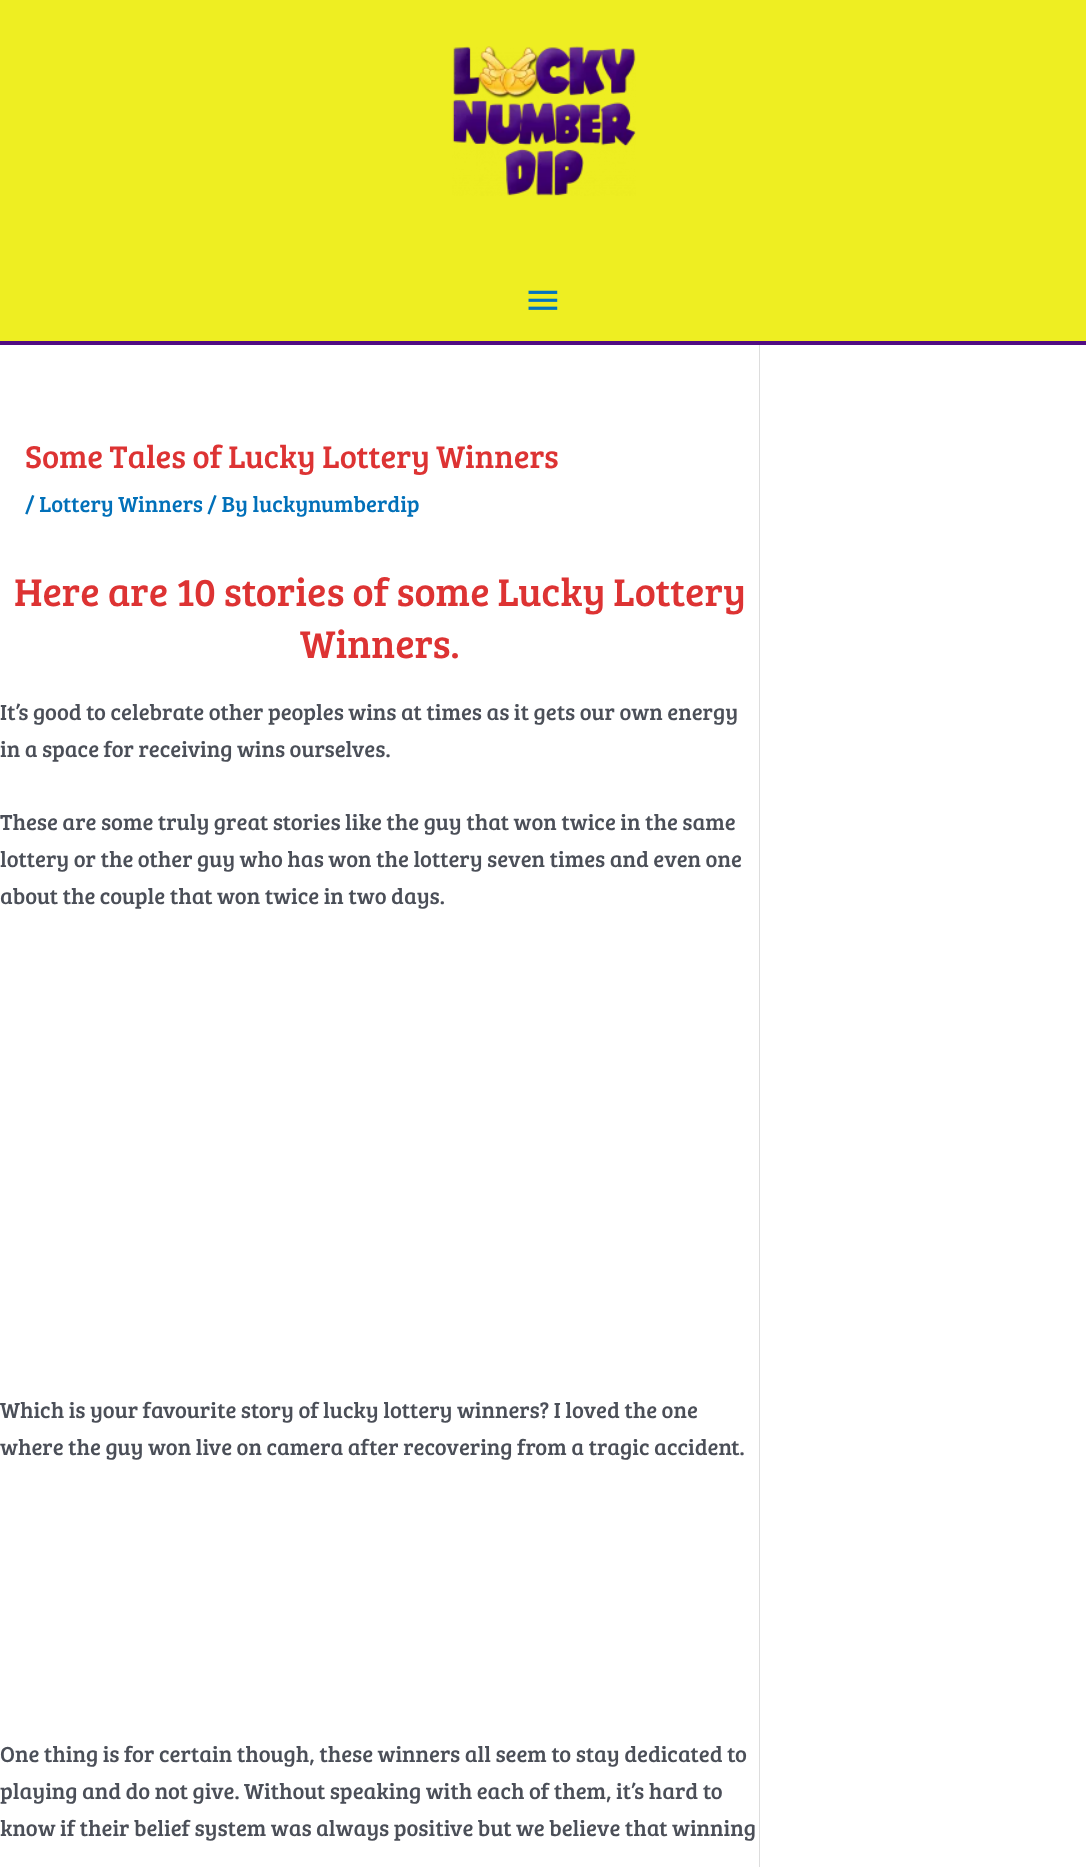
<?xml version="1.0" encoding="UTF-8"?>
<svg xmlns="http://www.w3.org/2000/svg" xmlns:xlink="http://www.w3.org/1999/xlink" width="1086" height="1867">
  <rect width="100%" height="100%" fill="#ffffff" />
  <rect width="1086" height="341" fill="#eeee22" />
  <rect y="341" width="1086" height="4" fill="#510d82" />
  <image x="452" y="46" width="184" height="150" xlink:href="image1.png" />
  <image x="528" y="290" width="30" height="20" xlink:href="image2.png" />
  <rect x="759" y="345" width="1" height="1522" fill="#dddddd" />
  <text x="25" y="468" style="font-family: Bree Serif; font-size: 32.5px; fill: #dd3333">Some Tales of Lucky Lottery Winners</text>
  <text x="25" y="512" style="font-family: Bree Serif; font-size: 22.5px; fill: #0170b9">/ Lottery Winners / By luckynumberdip</text>
  <text x="14" y="606" style="font-family: Bree Serif; font-size: 40px; fill: #dd3333">Here are 10 stories of some Lucky Lottery</text>
  <text x="300" y="658" style="font-family: Bree Serif; font-size: 40px; fill: #dd3333">Winners.</text>
  <text x="0" y="720" style="font-family: Bree Serif; font-size: 22.5px; fill: #4b4f58">It’s good to celebrate other peoples wins at times as it gets our own energy</text>
  <text x="0" y="757" style="font-family: Bree Serif; font-size: 22.5px; fill: #4b4f58">in a space for receiving wins ourselves.</text>
  <text x="0" y="830" style="font-family: Bree Serif; font-size: 22.5px; fill: #4b4f58">These are some truly great stories like the guy that won twice in the same</text>
  <text x="0" y="867" style="font-family: Bree Serif; font-size: 22.5px; fill: #4b4f58">lottery or the other guy who has won the lottery seven times and even one</text>
  <text x="0" y="904" style="font-family: Bree Serif; font-size: 22.5px; fill: #4b4f58">about the couple that won twice in two days.</text>
  <text x="0" y="1418" style="font-family: Bree Serif; font-size: 22.5px; fill: #4b4f58">Which is your favourite story of lucky lottery winners? I loved the one</text>
  <text x="0" y="1455" style="font-family: Bree Serif; font-size: 22.5px; fill: #4b4f58">where the guy won live on camera after recovering from a tragic accident.</text>
  <text x="0" y="1762" style="font-family: Bree Serif; font-size: 22.5px; fill: #4b4f58">One thing is for certain though, these winners all seem to stay dedicated to</text>
  <text x="0" y="1799" style="font-family: Bree Serif; font-size: 22.5px; fill: #4b4f58">playing and do not give. Without speaking with each of them, it’s hard to</text>
  <text x="0" y="1836" style="font-family: Bree Serif; font-size: 22.5px; fill: #4b4f58">know if their belief system was always positive but we believe that winning</text>
</svg>
